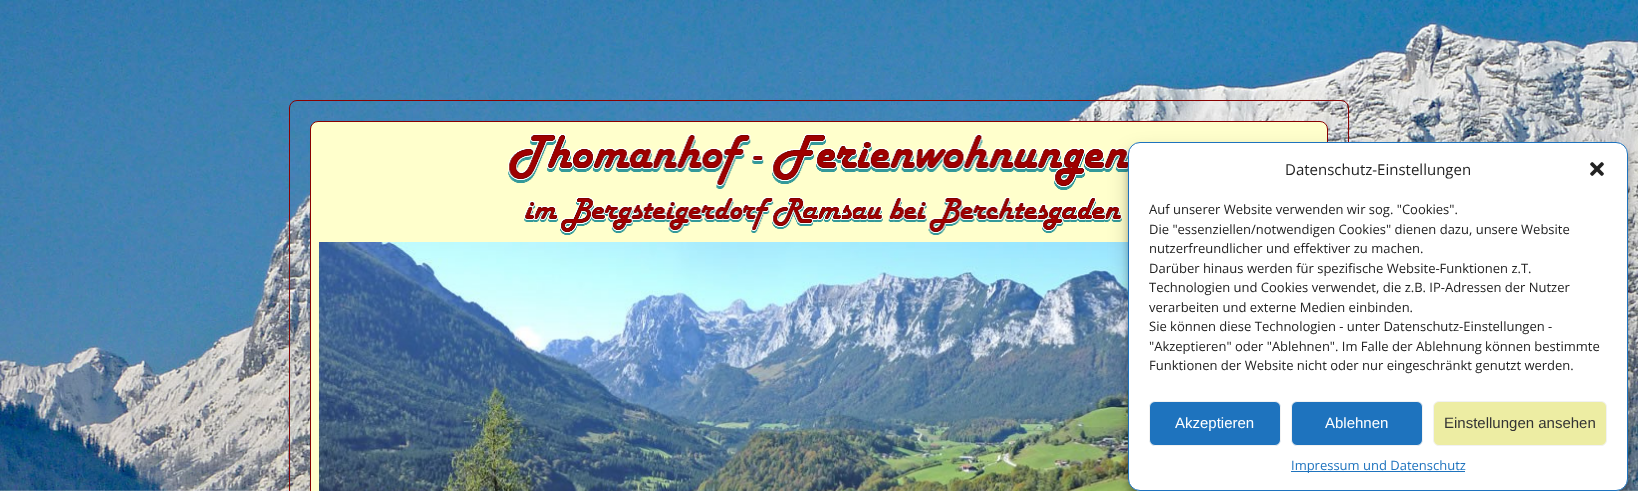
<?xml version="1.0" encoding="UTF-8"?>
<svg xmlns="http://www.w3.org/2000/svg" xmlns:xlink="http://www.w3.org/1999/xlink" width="1638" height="491">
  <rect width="100%" height="100%" fill="#ffffff" />
  <image x="0" y="0" width="1638" height="491" xlink:href="image1.png" />
  <rect x="289.5" y="100.5" width="1059" height="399" rx="7.5" fill="none" stroke="#880000" />
  <rect x="310.5" y="121.5" width="1017" height="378" rx="7.5" fill="#ffffcc" stroke="#880000" />
  <image x="508" y="134" width="620" height="101" xlink:href="image2.png" />
  <image x="319" y="242" width="821" height="249" xlink:href="image3.png" />
  <rect x="1128" y="148" width="500" height="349" rx="12" fill="#000000" fill-opacity="0.23" filter="blur(3px)" />
  <rect x="1128" y="152" width="500" height="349" rx="12" fill="#000000" fill-opacity="0.19" filter="blur(10px)" />
  <rect x="1128.5" y="142.5" width="499" height="348" rx="11.5" fill="#ffffff" stroke="#1e73be" />
  <image x="1590" y="162" width="14" height="14" xlink:href="image4.png" />
  <rect x="1149.5" y="401.5" width="131" height="44" rx="5.5" fill="#1e73be" stroke="#f2f2f2" />
  <rect x="1291.5" y="401.5" width="131" height="44" rx="5.5" fill="#1e73be" stroke="#f2f2f2" />
  <rect x="1433.5" y="401.5" width="173" height="44" rx="5.5" fill="#ededa3" stroke="#f2f2f2" />
  <rect x="1291" y="471" width="174" height="1" fill="#1e73be" />
  <text x="1285" y="175" style="font-family: Open Sans; font-size: 15px; fill: #222222">Datenschutz-Einstellungen</text>
  <text x="1149" y="214" style="font-family: Open Sans; font-size: 13px; fill: #222222">Auf unserer Website verwenden wir sog. "Cookies".</text>
  <text x="1149" y="234" style="font-family: Open Sans; font-size: 13px; fill: #222222">Die "essenziellen/notwendigen Cookies" dienen dazu, unsere Website</text>
  <text x="1149" y="253" style="font-family: Open Sans; font-size: 13px; fill: #222222">nutzerfreundlicher und effektiver zu machen.</text>
  <text x="1149" y="273" style="font-family: Open Sans; font-size: 13px; fill: #222222">Darüber hinaus werden für spezifische Website-Funktionen z.T.</text>
  <text x="1149" y="292" style="font-family: Open Sans; font-size: 13px; fill: #222222">Technologien und Cookies verwendet, die z.B. IP-Adressen der Nutzer</text>
  <text x="1149" y="312" style="font-family: Open Sans; font-size: 13px; fill: #222222">verarbeiten und externe Medien einbinden.</text>
  <text x="1149" y="331" style="font-family: Open Sans; font-size: 13px; fill: #222222">Sie können diese Technologien - unter Datenschutz-Einstellungen -</text>
  <text x="1149" y="351" style="font-family: Open Sans; font-size: 13px; fill: #222222">"Akzeptieren" oder "Ablehnen". Im Falle der Ablehnung können bestimmte</text>
  <text x="1149" y="370" style="font-family: Open Sans; font-size: 13px; fill: #222222">Funktionen der Website nicht oder nur eingeschränkt genutzt werden.</text>
  <text x="1175" y="428" style="font-family: Liberation Sans; font-size: 15px; fill: #ffffff">Akzeptieren</text>
  <text x="1325" y="428" style="font-family: Liberation Sans; font-size: 15px; fill: #ffffff">Ablehnen</text>
  <text x="1444" y="428" style="font-family: Liberation Sans; font-size: 15px; fill: #333333">Einstellungen ansehen</text>
  <text x="1291" y="470" style="font-family: Open Sans; font-size: 13px; fill: #1e73be">Impressum und Datenschutz</text>
</svg>
